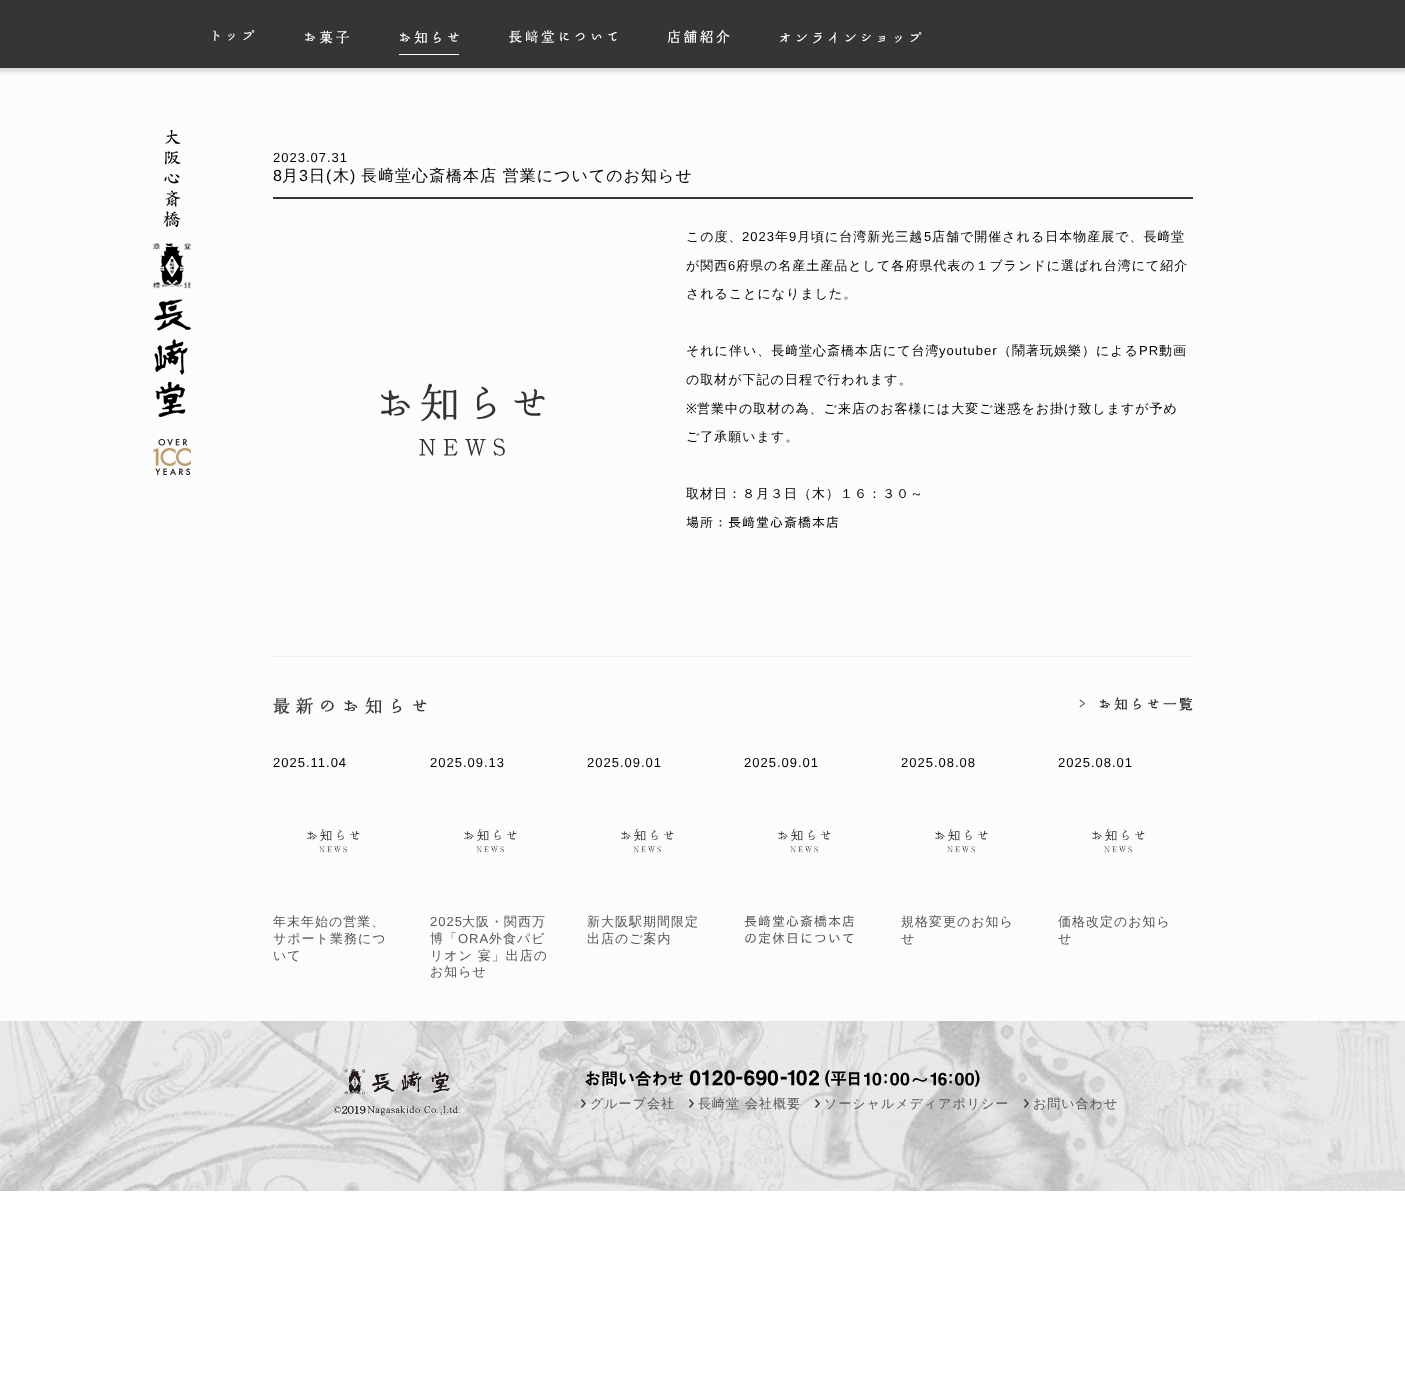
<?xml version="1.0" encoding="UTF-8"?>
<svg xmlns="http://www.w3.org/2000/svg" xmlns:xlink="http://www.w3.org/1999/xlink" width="1405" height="1374">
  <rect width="100%" height="100%" fill="#ffffff" />
  <rect y="68" width="1405" height="953" fill="#fcfcfc" />
  <image x="0" y="0" width="1405" height="75" xlink:href="image1.png" />
  <image x="213" y="30" width="42" height="11" xlink:href="image2.png" />
  <image x="305" y="30" width="44" height="14" xlink:href="image3.png" />
  <image x="399" y="30" width="60" height="14" xlink:href="image4.png" />
  <rect x="399" y="54" width="60" height="1" fill="#ffffff" />
  <image x="509" y="30" width="108" height="13" xlink:href="image5.png" />
  <image x="667" y="30" width="63" height="14" xlink:href="image6.png" />
  <image x="780" y="32" width="142" height="12" xlink:href="image7.png" />
  <image x="153" y="130" width="38" height="345" xlink:href="image8.png" />
  <rect x="273" y="197" width="920" height="2" fill="#353535" />
  <image x="381" y="383" width="164" height="73" xlink:href="image9.png" />
  <path d="M 273 656.5 h 920" fill="none" stroke="#dfdfdf" stroke-dasharray="1 1" />
  <image x="273" y="697" width="154" height="18" xlink:href="image10.png" />
  <image x="1079" y="697" width="114" height="14" xlink:href="image11.png" />
  <image x="307" y="829" width="53" height="24" xlink:href="image12.png" />
  <image x="464" y="829" width="53" height="24" xlink:href="image12.png" />
  <image x="621" y="829" width="53" height="24" xlink:href="image13.png" />
  <image x="778" y="829" width="53" height="24" xlink:href="image12.png" />
  <image x="935" y="829" width="53" height="24" xlink:href="image12.png" />
  <image x="1092" y="829" width="53" height="24" xlink:href="image12.png" />
  <image x="0" y="1021" width="1405" height="170" xlink:href="image14.png" />
  <image x="333" y="1069" width="127" height="47" xlink:href="image15.png" />
  <image x="585" y="1070" width="395" height="17" xlink:href="image16.png" />
  <image x="581" y="1099" width="5" height="9" xlink:href="image17.png" />
  <image x="689" y="1099" width="5" height="9" xlink:href="image18.png" />
  <image x="815" y="1099" width="5" height="9" xlink:href="image19.png" />
  <image x="1024" y="1099" width="5" height="9" xlink:href="image20.png" />
  <text x="273" y="162" style="font-family: Liberation Sans; font-size: 13px; letter-spacing: 1px; fill: #000000">2023.07.31</text>
  <text x="273" y="181" style="font-family: Liberation Sans; font-size: 16px; letter-spacing: 1px; fill: #000000">8</text>
  <text x="282" y="181" style="font-family: WenQuanYi Zen Hei; font-size: 16px; font-weight: 500; letter-spacing: 1px; fill: #000000">月</text>
  <text x="299" y="181" style="font-family: Liberation Sans; font-size: 16px; letter-spacing: 1px; fill: #000000">3</text>
  <text x="309" y="181" style="font-family: WenQuanYi Zen Hei; font-size: 16px; font-weight: 500; letter-spacing: 1px; fill: #000000">日</text>
  <text x="326" y="181" style="font-family: Liberation Sans; font-size: 16px; letter-spacing: 1px; fill: #000000">(</text>
  <text x="333" y="181" style="font-family: WenQuanYi Zen Hei; font-size: 16px; font-weight: 500; letter-spacing: 1px; fill: #000000">木</text>
  <text x="350" y="181" style="font-family: Liberation Sans; font-size: 16px; letter-spacing: 1px; fill: #000000">)</text>
  <text x="361" y="181" style="font-family: WenQuanYi Zen Hei; font-size: 16px; font-weight: 500; letter-spacing: 1px; fill: #000000">長</text>
  <text x="378" y="181" style="font-family: IPAGothic; font-size: 16px; letter-spacing: 1px; fill: #000000">﨑</text>
  <text x="395" y="181" style="font-family: WenQuanYi Zen Hei; font-size: 16px; font-weight: 500; letter-spacing: 1px; fill: #000000">堂心斎橋本店 営業についてのお知らせ</text>
  <text x="686" y="241" style="font-family: WenQuanYi Zen Hei; font-size: 13px; font-weight: 500; letter-spacing: 1px; fill: #000000">この度、</text>
  <text x="742" y="241" style="font-family: Liberation Sans; font-size: 13px; letter-spacing: 1px; fill: #000000">2023</text>
  <text x="775" y="241" style="font-family: WenQuanYi Zen Hei; font-size: 13px; font-weight: 500; letter-spacing: 1px; fill: #000000">年</text>
  <text x="789" y="241" style="font-family: Liberation Sans; font-size: 13px; letter-spacing: 1px; fill: #000000">9</text>
  <text x="797" y="241" style="font-family: WenQuanYi Zen Hei; font-size: 13px; font-weight: 500; letter-spacing: 1px; fill: #000000">月頃に台湾新光三越</text>
  <text x="924" y="241" style="font-family: Liberation Sans; font-size: 13px; letter-spacing: 1px; fill: #000000">5</text>
  <text x="932" y="241" style="font-family: WenQuanYi Zen Hei; font-size: 13px; font-weight: 500; letter-spacing: 1px; fill: #000000">店舗で開催される日本物産展で、長</text>
  <text x="1157" y="241" style="font-family: IPAGothic; font-size: 13px; letter-spacing: 1px; fill: #000000">﨑</text>
  <text x="1171" y="241" style="font-family: WenQuanYi Zen Hei; font-size: 13px; font-weight: 500; letter-spacing: 1px; fill: #000000">堂</text>
  <text x="686" y="270" style="font-family: WenQuanYi Zen Hei; font-size: 13px; font-weight: 500; letter-spacing: 1px; fill: #000000">が関西</text>
  <text x="728" y="270" style="font-family: Liberation Sans; font-size: 13px; letter-spacing: 1px; fill: #000000">6</text>
  <text x="736" y="270" style="font-family: WenQuanYi Zen Hei; font-size: 13px; font-weight: 500; letter-spacing: 1px; fill: #000000">府県の名産土産品として各府県代表の１ブランドに選ばれ台湾にて紹介</text>
  <text x="686" y="298" style="font-family: WenQuanYi Zen Hei; font-size: 13px; font-weight: 500; letter-spacing: 1px; fill: #000000">されることになりました。</text>
  <text x="686" y="355" style="font-family: WenQuanYi Zen Hei; font-size: 13px; font-weight: 500; letter-spacing: 1px; fill: #000000">それに伴い、長</text>
  <text x="785" y="355" style="font-family: IPAGothic; font-size: 13px; letter-spacing: 1px; fill: #000000">﨑</text>
  <text x="799" y="355" style="font-family: WenQuanYi Zen Hei; font-size: 13px; font-weight: 500; letter-spacing: 1px; fill: #000000">堂心斎橋本店にて台湾</text>
  <text x="939" y="355" style="font-family: Liberation Sans; font-size: 13px; letter-spacing: 1px; fill: #000000">youtuber</text>
  <text x="998" y="355" style="font-family: WenQuanYi Zen Hei; font-size: 13px; font-weight: 500; letter-spacing: 1px; fill: #000000">（鬧著玩娛樂）による</text>
  <text x="1139" y="355" style="font-family: Liberation Sans; font-size: 13px; letter-spacing: 1px; fill: #000000">PR</text>
  <text x="1159" y="355" style="font-family: WenQuanYi Zen Hei; font-size: 13px; font-weight: 500; letter-spacing: 1px; fill: #000000">動画</text>
  <text x="686" y="384" style="font-family: WenQuanYi Zen Hei; font-size: 13px; font-weight: 500; letter-spacing: 1px; fill: #000000">の取材が下記の日程で行われます。</text>
  <text x="686" y="413" style="font-family: Noto Sans; font-size: 13px; letter-spacing: 1px; fill: #000000">※</text>
  <text x="697" y="413" style="font-family: WenQuanYi Zen Hei; font-size: 13px; font-weight: 500; letter-spacing: 1px; fill: #000000">営業中の取材の為、ご来店のお客様には大変ご迷惑をお掛け致しますが予め</text>
  <text x="686" y="441" style="font-family: WenQuanYi Zen Hei; font-size: 13px; font-weight: 500; letter-spacing: 1px; fill: #000000">ご了承願います。</text>
  <text x="686" y="498" style="font-family: WenQuanYi Zen Hei; font-size: 13px; font-weight: 500; letter-spacing: 1px; fill: #000000">取材日：８月３日（木）１６：３０～</text>
  <text x="686" y="527" style="font-family: IPAGothic; font-size: 13px; letter-spacing: 1px; fill: #000000">場所：長﨑堂心斎橋本店</text>
  <text x="273" y="767" style="font-family: Liberation Sans; font-size: 13px; letter-spacing: 1px; fill: #000000">2025.11.04</text>
  <text x="273" y="926" style="font-family: WenQuanYi Zen Hei; font-size: 13px; font-weight: 500; letter-spacing: 1px; fill: #575656">年末年始の営業、</text>
  <text x="273" y="943" style="font-family: WenQuanYi Zen Hei; font-size: 13px; font-weight: 500; letter-spacing: 1px; fill: #575656">サポート業務につ</text>
  <text x="273" y="960" style="font-family: WenQuanYi Zen Hei; font-size: 13px; font-weight: 500; letter-spacing: 1px; fill: #575656">いて</text>
  <text x="430" y="767" style="font-family: Liberation Sans; font-size: 13px; letter-spacing: 1px; fill: #000000">2025.09.13</text>
  <text x="430" y="926" style="font-family: Liberation Sans; font-size: 13px; letter-spacing: 1px; fill: #575656">2025</text>
  <text x="462" y="926" style="font-family: WenQuanYi Zen Hei; font-size: 13px; font-weight: 500; letter-spacing: 1px; fill: #575656">大阪・関西万</text>
  <text x="430" y="943" style="font-family: WenQuanYi Zen Hei; font-size: 13px; font-weight: 500; letter-spacing: 1px; fill: #575656">博「</text>
  <text x="458" y="943" style="font-family: Liberation Sans; font-size: 13px; letter-spacing: 1px; fill: #575656">ORA</text>
  <text x="489" y="943" style="font-family: WenQuanYi Zen Hei; font-size: 13px; font-weight: 500; letter-spacing: 1px; fill: #575656">外食パビ</text>
  <text x="430" y="960" style="font-family: WenQuanYi Zen Hei; font-size: 13px; font-weight: 500; letter-spacing: 1px; fill: #575656">リオン 宴」出店の</text>
  <text x="430" y="976" style="font-family: WenQuanYi Zen Hei; font-size: 13px; font-weight: 500; letter-spacing: 1px; fill: #575656">お知らせ</text>
  <text x="587" y="767" style="font-family: Liberation Sans; font-size: 13px; letter-spacing: 1px; fill: #000000">2025.09.01</text>
  <text x="587" y="926" style="font-family: WenQuanYi Zen Hei; font-size: 13px; font-weight: 500; letter-spacing: 1px; fill: #575656">新大阪駅期間限定</text>
  <text x="587" y="943" style="font-family: WenQuanYi Zen Hei; font-size: 13px; font-weight: 500; letter-spacing: 1px; fill: #575656">出店のご案内</text>
  <text x="744" y="767" style="font-family: Liberation Sans; font-size: 13px; letter-spacing: 1px; fill: #000000">2025.09.01</text>
  <text x="744" y="926" style="font-family: IPAGothic; font-size: 13px; letter-spacing: 1px; fill: #575656">長﨑堂心斎橋本店</text>
  <text x="744" y="943" style="font-family: IPAGothic; font-size: 13px; letter-spacing: 1px; fill: #575656">の定休日について</text>
  <text x="901" y="767" style="font-family: Liberation Sans; font-size: 13px; letter-spacing: 1px; fill: #000000">2025.08.08</text>
  <text x="901" y="926" style="font-family: WenQuanYi Zen Hei; font-size: 13px; font-weight: 500; letter-spacing: 1px; fill: #575656">規格変更のお知ら</text>
  <text x="901" y="943" style="font-family: WenQuanYi Zen Hei; font-size: 13px; font-weight: 500; letter-spacing: 1px; fill: #575656">せ</text>
  <text x="1058" y="767" style="font-family: Liberation Sans; font-size: 13px; letter-spacing: 1px; fill: #000000">2025.08.01</text>
  <text x="1058" y="926" style="font-family: WenQuanYi Zen Hei; font-size: 13px; font-weight: 500; letter-spacing: 1px; fill: #575656">価格改定のお知ら</text>
  <text x="1058" y="943" style="font-family: WenQuanYi Zen Hei; font-size: 13px; font-weight: 500; letter-spacing: 1px; fill: #575656">せ</text>
  <text x="590" y="1108" style="font-family: WenQuanYi Zen Hei; font-size: 13px; font-weight: 500; letter-spacing: 1px; fill: #575656">グループ会社</text>
  <text x="698" y="1108" style="font-family: WenQuanYi Zen Hei; font-size: 13px; font-weight: 500; letter-spacing: 1px; fill: #575656">長崎堂 会社概要</text>
  <text x="824" y="1108" style="font-family: WenQuanYi Zen Hei; font-size: 13px; font-weight: 500; letter-spacing: 1px; fill: #575656">ソーシャルメディアポリシー</text>
  <text x="1033" y="1108" style="font-family: WenQuanYi Zen Hei; font-size: 13px; font-weight: 500; letter-spacing: 1px; fill: #575656">お問い合わせ</text>
</svg>
